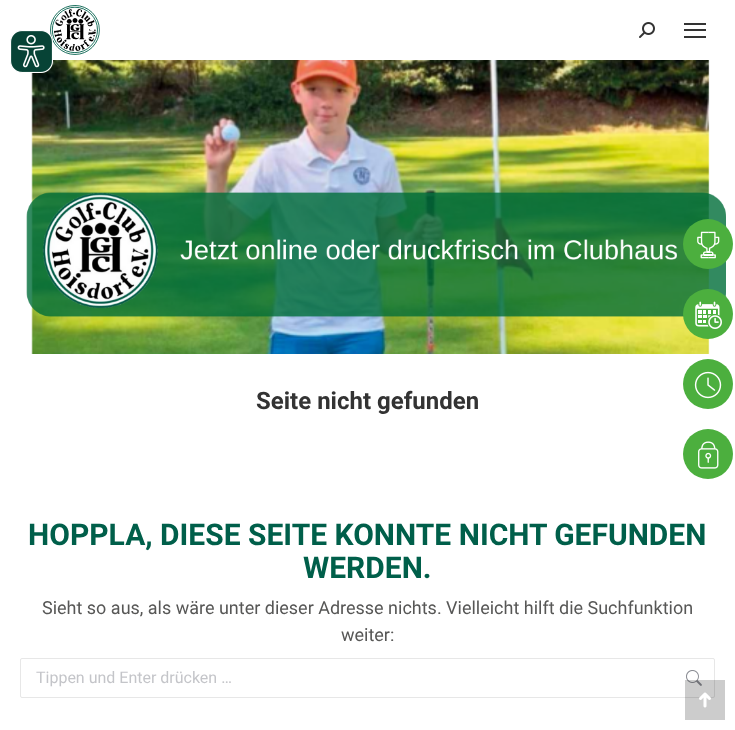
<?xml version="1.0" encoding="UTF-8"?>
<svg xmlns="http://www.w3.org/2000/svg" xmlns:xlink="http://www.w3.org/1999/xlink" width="735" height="730">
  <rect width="100%" height="100%" fill="#ffffff" />
  <image x="50" y="5" width="50" height="50" xlink:href="image6.png" />
  <image x="26" y="60" width="700" height="294" xlink:href="image8.png" />
  <image x="10" y="30" width="43" height="43" xlink:href="image1.png" />
  <circle cx="708" cy="244" r="25" fill="#4caf3e" />
  <image x="697" y="231" width="23" height="28" xlink:href="image2.png" />
  <circle cx="708" cy="314" r="25" fill="#4caf3e" />
  <image x="695" y="301" width="27" height="28" xlink:href="image3.png" />
  <circle cx="708" cy="384" r="25" fill="#4caf3e" />
  <image x="694" y="371" width="28" height="28" xlink:href="image4.png" />
  <circle cx="708" cy="454" r="25" fill="#4caf3e" />
  <image x="698" y="441" width="21" height="28" xlink:href="image5.png" />
  <image x="639" y="22" width="16" height="16" xlink:href="image7.png" />
  <rect x="684" y="23" width="22" height="2" fill="#333333" />
  <rect x="684" y="29" width="22" height="2" fill="#333333" />
  <rect x="684" y="36" width="22" height="2" fill="#333333" />
  <rect x="20.5" y="658.5" width="694" height="39" rx="1.5" fill="none" stroke="#e7e7e7" />
  <image x="686" y="670" width="16" height="16" xlink:href="image9.png" />
  <rect x="685" y="680" width="40" height="40" fill="#000000" fill-opacity="0.2" />
  <image x="699" y="692" width="12" height="16" xlink:href="image10.png" />
  <text x="256" y="409" style="font-family: Roboto; font-size: 24px; font-weight: bold; fill: #333333">Seite nicht gefunden</text>
  <text x="28" y="545" style="font-family: Roboto; font-size: 30px; font-weight: bold; fill: #005f4a">HOPPLA, DIESE SEITE KONNTE NICHT GEFUNDEN</text>
  <text x="303" y="578" style="font-family: Roboto; font-size: 30px; font-weight: bold; fill: #005f4a">WERDEN.</text>
  <text x="42" y="614" style="font-family: Roboto; font-size: 18px; fill: #575756">Sieht so aus, als wäre unter dieser Adresse nichts. Vielleicht hilft die Suchfunktion</text>
  <text x="341" y="641" style="font-family: Roboto; font-size: 18px; fill: #575756">weiter:</text>
  <text x="36" y="683" style="font-family: Roboto; font-size: 16px; fill: #c4c5c9">Tippen und Enter drücken …</text>
</svg>
